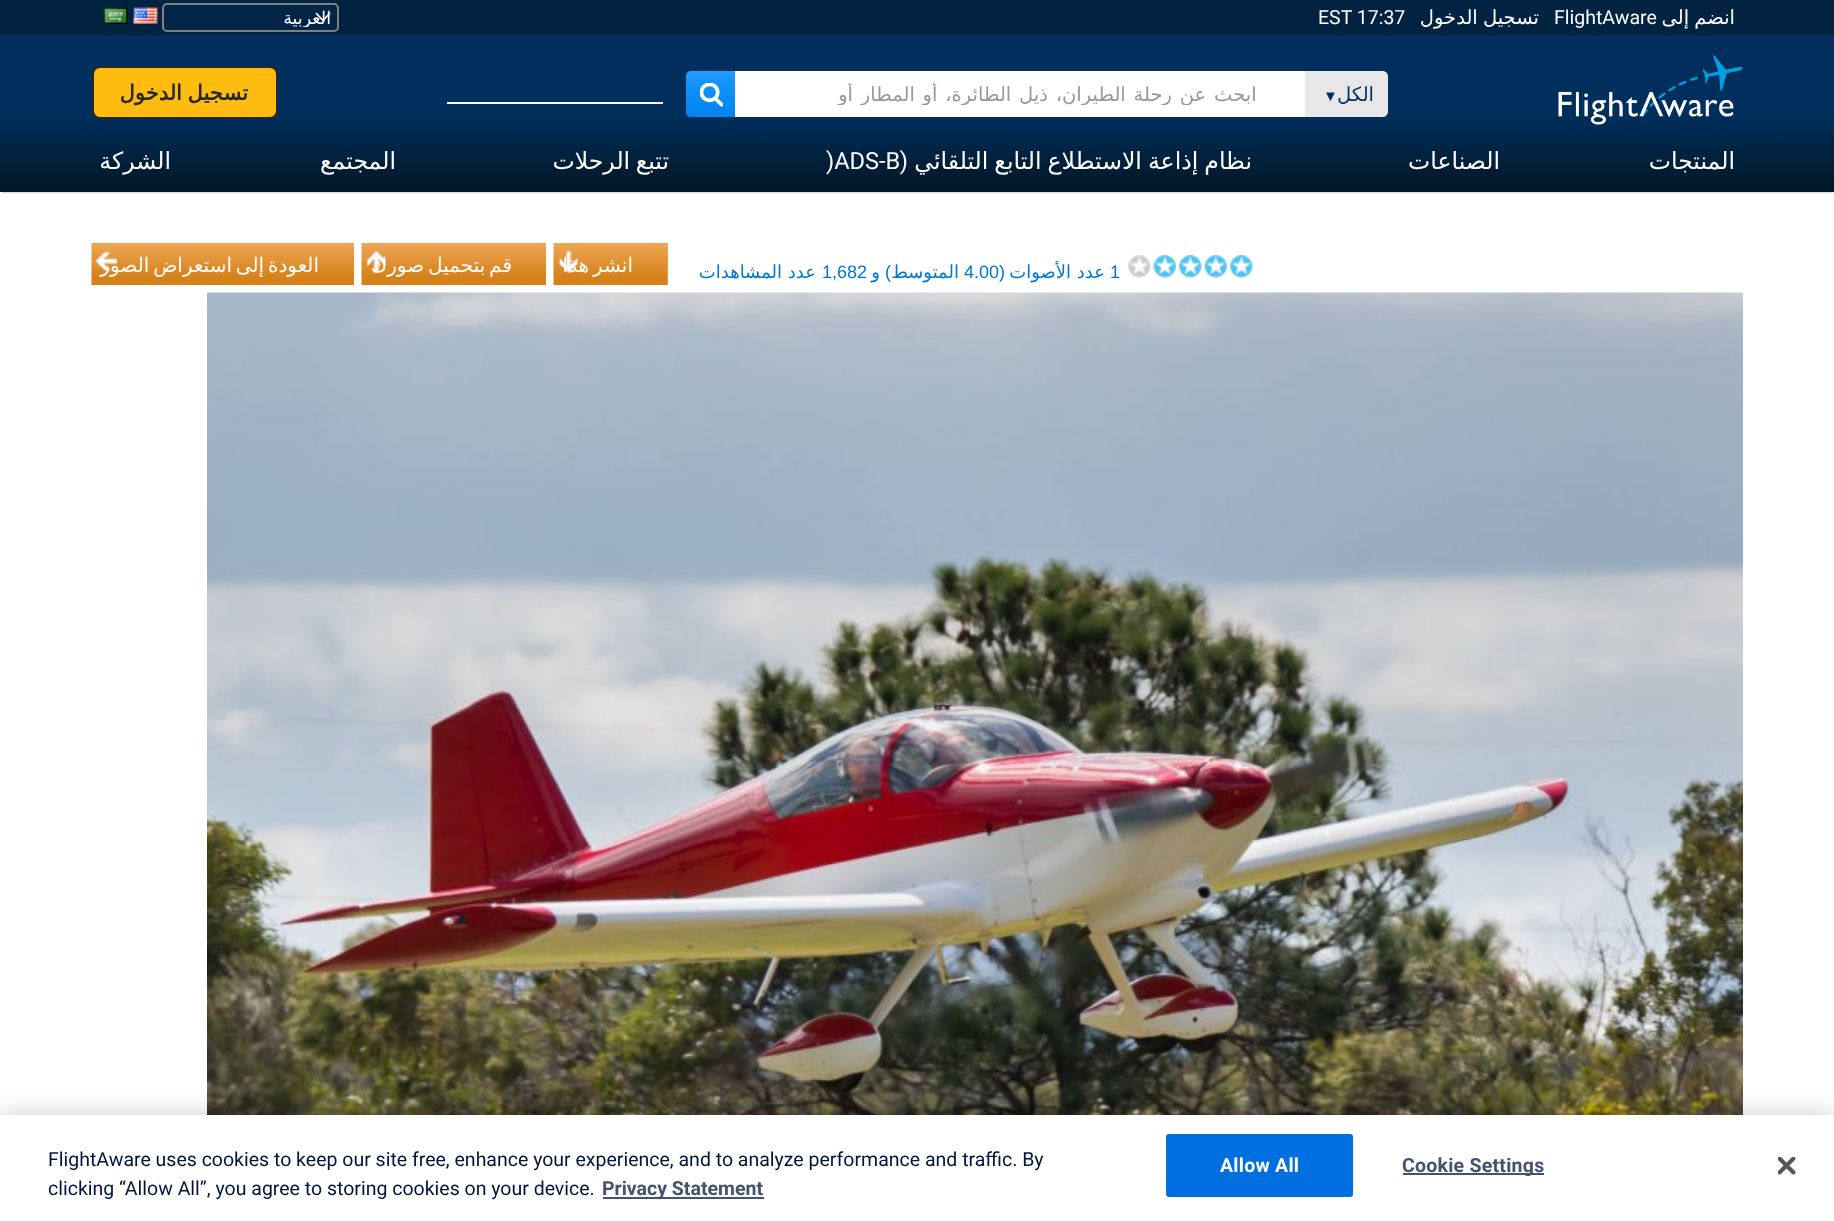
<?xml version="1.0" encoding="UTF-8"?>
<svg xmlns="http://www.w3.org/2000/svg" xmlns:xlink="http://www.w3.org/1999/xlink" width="1834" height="1221">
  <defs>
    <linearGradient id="g1" gradientUnits="userSpaceOnUse" x1="917" y1="0" x2="917" y2="192"><stop offset="0" stop-color="#002f5d" /><stop offset="0.6" stop-color="#002f5d" /><stop offset="1" stop-color="#021624" /></linearGradient>
    <linearGradient id="g2" gradientUnits="userSpaceOnUse" x1="711" y1="117" x2="711" y2="71"><stop offset="0" stop-color="#0084f0" /><stop offset="0.66" stop-color="#1291f8" /><stop offset="1" stop-color="#249dff" /></linearGradient>
    <clipPath id="clip1"><rect x="170" y="8" width="162" height="19" /></clipPath>
    <clipPath id="clip2"><rect x="750" y="83" width="548" height="22" /></clipPath>
  </defs>
  <rect width="100%" height="100%" fill="#ffffff" />
  <rect x="2" y="3" width="1831" height="189" fill="#888888" filter="blur(1px)" />
  <rect y="35" width="1834" height="157" fill="url(#g1)" />
  <rect width="1834" height="35" fill="#022241" />
  <image x="103" y="7" width="25" height="17" xlink:href="image1.png" />
  <image x="133" y="7" width="25" height="17" xlink:href="image2.png" />
  <rect x="162" y="3" width="177" height="29" rx="5" fill="#022547" />
  <path d="M 316 13 l 7 7.5 l 7 -7.5" fill="none" stroke="#ffffff" stroke-width="1.8" />
  <rect x="163" y="4" width="175" height="27" rx="4" fill="none" stroke="#808080" stroke-width="2" />
  <rect x="93" y="67" width="184" height="51" rx="7" fill="#febc11" stroke="#272727" stroke-width="2" />
  <rect x="447" y="102" width="216" height="2" fill="#ffffff" />
  <path d="M 691 71 h 44 v 46 h -44 c -3 0 -5 -2 -5 -5 v -36 c 0 -3 2 -5 5 -5 z" fill="url(#g2)" />
  <image x="700" y="83" width="23" height="24" xlink:href="image3.png" />
  <rect x="735" y="71" width="570" height="46" fill="#ffffff" />
  <path d="M 1306 72 h 77 c 2 0 4 2 4 4 v 36 c 0 2 -2 4 -4 4 h -77 z" fill="#e7e7e7" stroke="#e7e7e7" stroke-width="2" />
  <image x="1558" y="55" width="185" height="70" xlink:href="image4.png" />
  <image x="91" y="243" width="263" height="42" xlink:href="image5.png" />
  <image x="95" y="251" width="23" height="21" xlink:href="image6.png" />
  <image x="361" y="243" width="185" height="42" xlink:href="image7.png" />
  <image x="365" y="250" width="21" height="23" xlink:href="image8.png" />
  <rect x="667" y="243" width="1" height="42" fill="#eda653" />
  <image x="553" y="243" width="115" height="42" xlink:href="image9.png" />
  <image x="558" y="250" width="20" height="23" xlink:href="image10.png" />
  <image x="1128" y="255" width="23" height="23" xlink:href="image11.png" />
  <image x="1153" y="255" width="23" height="23" xlink:href="image12.png" />
  <image x="1179" y="255" width="23" height="23" xlink:href="image13.png" />
  <image x="1204" y="255" width="23" height="23" xlink:href="image12.png" />
  <image x="1230" y="255" width="23" height="23" xlink:href="image13.png" />
  <image x="207" y="292" width="1536" height="823" xlink:href="image14.png" />
  <rect y="1115" width="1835" height="106" fill="#000000" fill-opacity="0.2" filter="blur(13.5px)" />
  <rect y="1115" width="1834" height="106" fill="#ffffff" />
  <rect x="603" y="1197" width="161" height="2" fill="#42526f" />
  <rect x="1167" y="1135" width="185" height="61" rx="2" fill="#0070e0" stroke="#0070e0" stroke-width="2" />
  <rect x="1403" y="1173" width="141" height="2" fill="#42526f" />
  <image x="1778" y="1157" width="18" height="18" xlink:href="image15.png" />
  <g clip-path="url(#clip1)">
    <text x="331" y="24" style="font-family: DejaVu Sans; font-size: 17.5px; direction: rtl; fill: #ffffff">العربية</text>
  </g>
  <text x="1318" y="24" style="font-family: Roboto; font-size: 19.5px; fill: #ffffff">EST 17:37</text>
  <text x="1539" y="24" word-spacing="-1" style="font-family: DejaVu Sans; font-size: 19.5px; direction: rtl; fill: #ffffff">تسجيل الدخول</text>
  <text x="1554" y="24" style="font-family: Roboto; font-size: 19.5px; fill: #ffffff">FlightAware</text>
  <text x="1735" y="24" word-spacing="-1" style="font-family: DejaVu Sans; font-size: 19.5px; direction: rtl; fill: #ffffff">انضم إلى</text>
  <text x="248" y="100" word-spacing="-1" style="font-family: DejaVu Sans; font-size: 21px; font-weight: bold; direction: rtl; fill: #272727">تسجيل الدخول</text>
  <g clip-path="url(#clip2)">
    <text x="1280" y="101" word-spacing="1.6" style="font-family: DejaVu Sans; font-size: 19.5px; direction: rtl; fill: #999999" xml:space="preserve">   ابحث عن رحلة الطيران، ذيل الطائرة، أو المطار أو</text>
  </g>
  <text x="1323" y="101" style="font-family: Liberation Sans; font-size: 15px; fill: #002f5d">▼</text>
  <text x="1374" y="101" style="font-family: DejaVu Sans; font-size: 19.5px; direction: rtl; fill: #002f5d">الكل</text>
  <text x="171" y="169" style="font-family: DejaVu Sans; font-size: 23.6px; direction: rtl; fill: #ffffff">الشركة</text>
  <text x="396" y="169" style="font-family: DejaVu Sans; font-size: 23.6px; direction: rtl; fill: #ffffff">المجتمع</text>
  <text x="669" y="169" word-spacing="-2" style="font-family: DejaVu Sans; font-size: 23.6px; direction: rtl; fill: #ffffff">تتبع الرحلات</text>
  <text x="826" y="169" style="font-family: Roboto; font-size: 23.6px; fill: #ffffff">)ADS-B</text>
  <text x="908" y="169" style="font-family: Roboto; font-size: 23.6px; direction: rtl; fill: #ffffff">(</text>
  <text x="1252" y="169" word-spacing="-1.5" style="font-family: DejaVu Sans; font-size: 23.6px; direction: rtl; fill: #ffffff">نظام إذاعة الاستطلاع التابع التلقائي</text>
  <text x="1500" y="169" style="font-family: DejaVu Sans; font-size: 23.6px; direction: rtl; fill: #ffffff">الصناعات</text>
  <text x="1735" y="169" style="font-family: DejaVu Sans; font-size: 23.6px; direction: rtl; fill: #ffffff">المنتجات</text>
  <text x="319" y="272" word-spacing="-2.5" style="font-family: DejaVu Sans; font-size: 20px; direction: rtl; fill: #ffffff">العودة إلى استعراض الصور</text>
  <text x="512" y="272" word-spacing="-2.5" style="font-family: DejaVu Sans; font-size: 20px; direction: rtl; fill: #ffffff">قم بتحميل صورك</text>
  <text x="633" y="272" word-spacing="-2.5" style="font-family: DejaVu Sans; font-size: 20px; direction: rtl; fill: #ffffff">انشر هذا</text>
  <text x="816" y="278" style="font-family: DejaVu Sans; font-size: 18px; direction: rtl; fill: #0077cc">عدد المشاهدات</text>
  <text x="822" y="278" style="font-family: Liberation Sans; font-size: 18px; fill: #0077cc">1,682</text>
  <text x="880" y="278" style="font-family: DejaVu Sans; font-size: 18px; direction: rtl; fill: #0077cc">و</text>
  <text x="891" y="278" style="font-family: Liberation Sans; font-size: 18px; direction: rtl; fill: #0077cc">)</text>
  <text x="959" y="278" style="font-family: DejaVu Sans; font-size: 18px; direction: rtl; fill: #0077cc">المتوسط</text>
  <text x="964" y="278" style="font-family: Liberation Sans; font-size: 18px; fill: #0077cc">4.00</text>
  <text x="1005" y="278" style="font-family: Liberation Sans; font-size: 18px; direction: rtl; fill: #0077cc">(</text>
  <text x="1105" y="278" style="font-family: DejaVu Sans; font-size: 18px; direction: rtl; fill: #0077cc">عدد الأصوات</text>
  <text x="1110" y="278" style="font-family: Liberation Sans; font-size: 18px; fill: #0077cc">1</text>
  <text x="48" y="1166" style="font-family: Roboto; font-size: 19.5px; fill: #00153d">FlightAware uses cookies to keep our site free, enhance your experience, and to analyze performance and traffic. By</text>
  <text x="48" y="1195" style="font-family: Roboto; font-size: 19.5px; fill: #00153d">clicking “Allow All”, you agree to storing cookies on your device.</text>
  <text x="602" y="1195" style="font-family: Roboto; font-size: 19.5px; font-weight: bold; fill: #42526f">Privacy Statement</text>
  <text x="1220" y="1172" style="font-family: Roboto; font-size: 19.5px; font-weight: bold; letter-spacing: 0.25px; fill: #ffffff">Allow All</text>
  <text x="1402" y="1172" style="font-family: Roboto; font-size: 19.5px; font-weight: bold; letter-spacing: 0.25px; fill: #42526f">Cookie Settings</text>
</svg>
